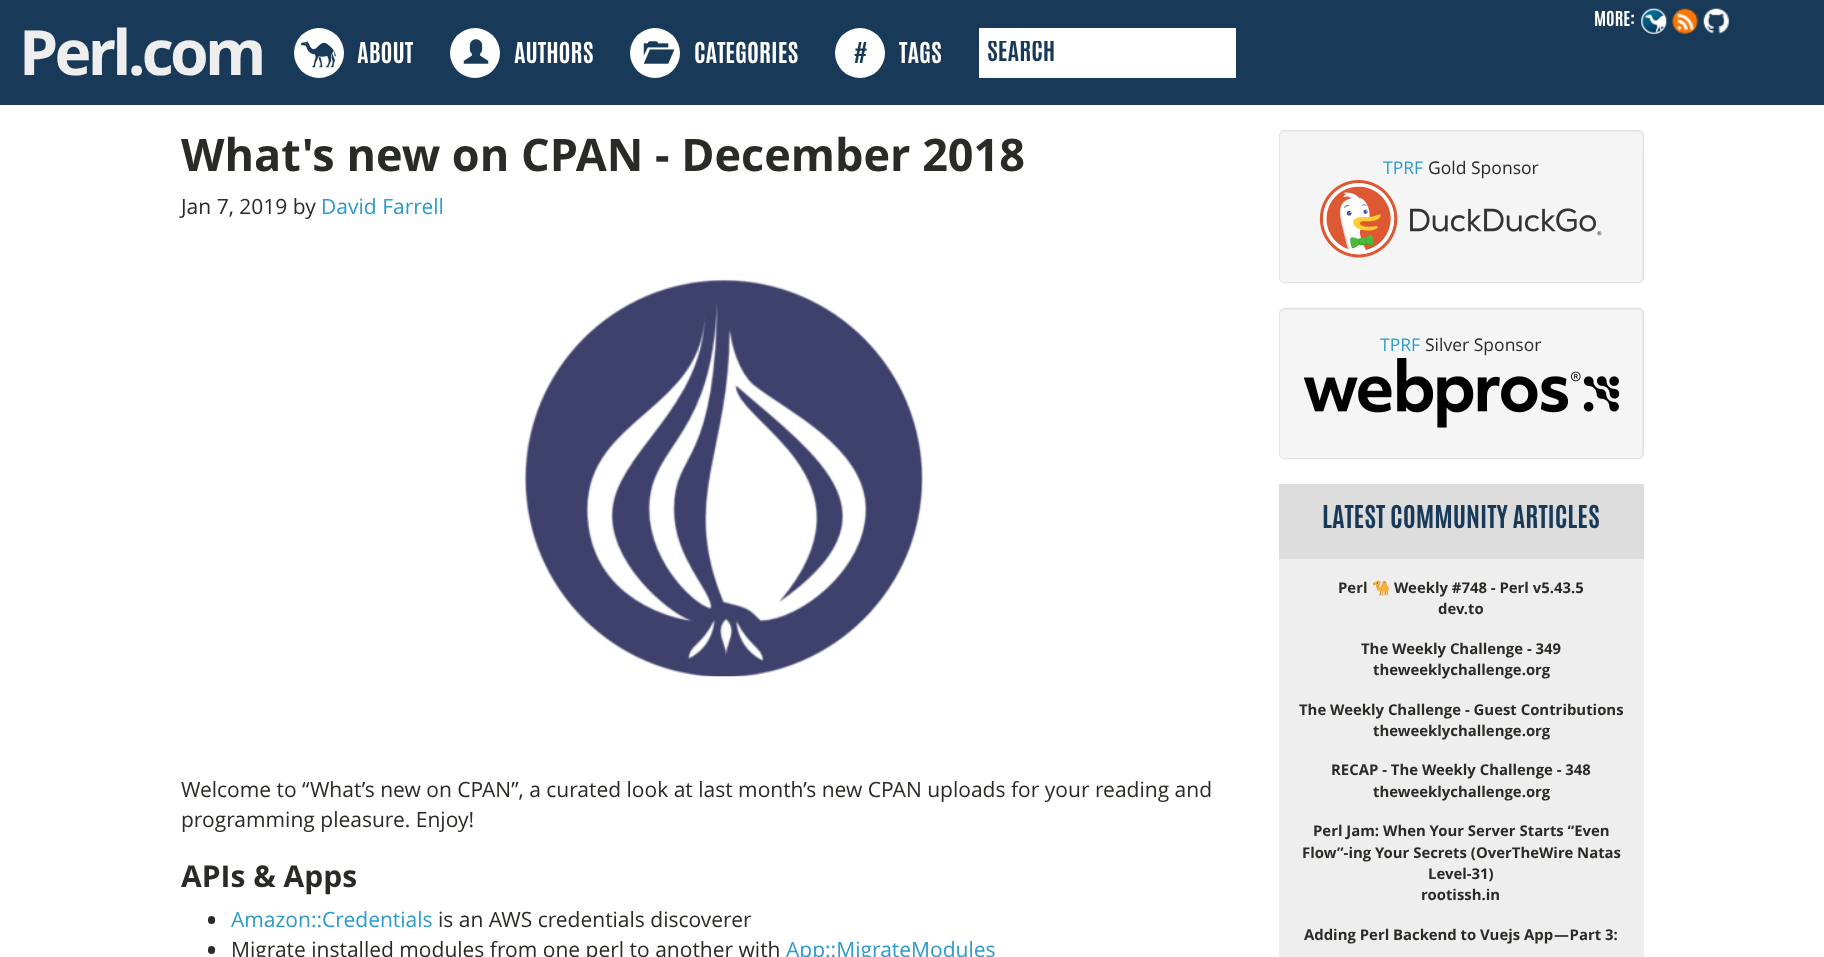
<?xml version="1.0" encoding="UTF-8"?>
<svg xmlns="http://www.w3.org/2000/svg" xmlns:xlink="http://www.w3.org/1999/xlink" width="1824" height="957">
  <defs>
    <clipPath id="clip1"><rect x="986" y="41" width="243" height="25" /></clipPath>
  </defs>
  <rect width="100%" height="100%" fill="#ffffff" />
  <rect width="1824" height="105" fill="#183a58" />
  <image x="1641" y="8" width="26" height="26" xlink:href="image1.png" />
  <image x="1672" y="8" width="26" height="26" xlink:href="image2.png" />
  <image x="1703" y="8" width="26" height="26" xlink:href="image3.png" />
  <circle cx="319" cy="53" r="25" fill="#ffffff" />
  <image x="300" y="41" width="36" height="27" xlink:href="image4.png" />
  <circle cx="475" cy="53" r="25" fill="#ffffff" />
  <image x="463" y="39" width="26" height="25" xlink:href="image5.png" />
  <circle cx="655" cy="53" r="25" fill="#ffffff" />
  <image x="643" y="41" width="32" height="23" xlink:href="image6.png" />
  <circle cx="860" cy="53" r="25" fill="#ffffff" />
  <rect x="979" y="28" width="257" height="50" fill="#ffffff" />
  <image x="524" y="279" width="399" height="398" xlink:href="image7.png" />
  <rect x="208" y="916" width="7" height="8" rx="3.5" fill="#292b26" />
  <rect x="208" y="946" width="7" height="8" rx="3.5" fill="#292b26" />
  <rect x="1279" y="130" width="365" height="153" rx="5" fill="#f5f5f5" />
  <path d="M 1284 132 h 355 c 6 0 3 21 3 28 v 120 c 1 -1 1 -2 1 -3 v -142 c 0 -2 -2 -4 -4 -4 h -355 c -2 0 -4 2 -4 4 v 1 c 0 -2 2 -4 4 -4 z" fill="#e9e9e9" />
  <rect x="1279.5" y="130.5" width="364" height="152" rx="4.5" fill="none" stroke="#e3e3e3" />
  <image x="1319" y="180" width="283" height="78" xlink:href="image8.png" />
  <rect x="1279" y="308" width="365" height="151" rx="5" fill="#f5f5f5" />
  <path d="M 1284 310 h 355 c 2 0 3 2 3 4 v 141 v 2 c 0 -1 1 -2 1 -3 v -141 c 0 -2 -2 -4 -4 -4 h -355 c -2 0 -4 2 -4 4 v 1 c 0 -2 2 -4 4 -4 z" fill="#e9e9e9" />
  <rect x="1279.5" y="308.5" width="364" height="150" rx="4.5" fill="none" stroke="#e3e3e3" />
  <image x="1304" y="358" width="315" height="70" xlink:href="image9.png" />
  <rect x="1279" y="559" width="365" height="398" fill="#eeeeee" />
  <rect x="1279" y="484" width="365" height="75" fill="#dddddd" />
  <text x="1594" y="26" style="font-family: Antonio; font-size: 17.5px; font-weight: bold; fill: #ffffff">MORE:</text>
  <text x="19" y="75" style="font-family: Open Sans; font-size: 62.5px; font-weight: bold; letter-spacing: -3.75px; fill: #eeeeee">Perl.com</text>
  <text x="357" y="63" style="font-family: Antonio; font-size: 24.5px; font-weight: bold; fill: #ffffff">ABOUT</text>
  <text x="514" y="63" style="font-family: Antonio; font-size: 24.5px; font-weight: bold; fill: #ffffff">AUTHORS</text>
  <text x="694" y="63" style="font-family: Antonio; font-size: 24.5px; font-weight: bold; fill: #ffffff">CATEGORIES</text>
  <text x="853" y="63" style="font-family: Antonio; font-size: 24.5px; font-weight: bold; fill: #183a58">#</text>
  <text x="899" y="63" style="font-family: Antonio; font-size: 24.5px; font-weight: bold; fill: #ffffff">TAGS</text>
  <g clip-path="url(#clip1)">
    <text x="987" y="61" style="font-family: Antonio; font-size: 24.5px; font-weight: bold; fill: #183a58">SEARCH</text>
  </g>
  <text x="181" y="171" style="font-family: Open Sans; font-size: 45px; font-weight: bold; fill: #292b26">What's new on CPAN - December 2018</text>
  <text x="181" y="214" style="font-family: Open Sans; font-size: 21px; fill: #292b26">Jan 7, 2019 by</text>
  <text x="321" y="214" style="font-family: Open Sans; font-size: 21px; fill: #2c9bcc">David Farrell</text>
  <text x="181" y="797" style="font-family: Open Sans; font-size: 21px; fill: #292b26">Welcome to “What’s new on CPAN”, a curated look at last month’s new CPAN uploads for your reading and</text>
  <text x="181" y="827" style="font-family: Open Sans; font-size: 21px; fill: #292b26">programming pleasure. Enjoy!</text>
  <text x="181" y="887" style="font-family: Open Sans; font-size: 30px; font-weight: bold; fill: #292b26">APIs &amp; Apps</text>
  <text x="231" y="927" style="font-family: Open Sans; font-size: 21px; fill: #2c9bcc">Amazon::Credentials</text>
  <text x="438" y="927" style="font-family: Open Sans; font-size: 21px; fill: #292b26">is an AWS credentials discoverer</text>
  <text x="231" y="957" style="font-family: Open Sans; font-size: 21px; fill: #292b26">Migrate installed modules from one perl to another with</text>
  <text x="786" y="957" style="font-family: Open Sans; font-size: 21px; fill: #2c9bcc">App::MigrateModules</text>
  <text x="1383" y="174" style="font-family: Open Sans; font-size: 17.5px; fill: #2c9bcc">TPRF</text>
  <text x="1428" y="174" style="font-family: Open Sans; font-size: 17.5px; fill: #292b26">Gold Sponsor</text>
  <text x="1380" y="351" style="font-family: Open Sans; font-size: 17.5px; fill: #2c9bcc">TPRF</text>
  <text x="1425" y="351" style="font-family: Open Sans; font-size: 17.5px; fill: #292b26">Silver Sponsor</text>
  <text x="1322" y="528" style="font-family: Antonio; font-size: 26.75px; font-weight: bold; fill: #183a58">LATEST COMMUNITY ARTICLES</text>
  <text x="1338" y="593" style="font-family: Open Sans; font-size: 14.9px; font-weight: bold; fill: #292b26">Perl</text>
  <text x="1372" y="593" style="font-family: Noto Color Emoji; font-size: 14.9px; font-weight: bold; fill: #292b26">🐪</text>
  <text x="1394" y="593" style="font-family: Open Sans; font-size: 14.9px; font-weight: bold; fill: #292b26">Weekly #748 - Perl v5.43.5</text>
  <text x="1438" y="614" style="font-family: Open Sans; font-size: 14.9px; font-weight: bold; fill: #292b26">dev.to</text>
  <text x="1361" y="654" style="font-family: Open Sans; font-size: 14.9px; font-weight: bold; fill: #292b26">The Weekly Challenge - 349</text>
  <text x="1373" y="675" style="font-family: Open Sans; font-size: 14.9px; font-weight: bold; fill: #292b26">theweeklychallenge.org</text>
  <text x="1299" y="715" style="font-family: Open Sans; font-size: 14.9px; font-weight: bold; fill: #292b26">The Weekly Challenge - Guest Contributions</text>
  <text x="1373" y="736" style="font-family: Open Sans; font-size: 14.9px; font-weight: bold; fill: #292b26">theweeklychallenge.org</text>
  <text x="1331" y="775" style="font-family: Open Sans; font-size: 14.9px; font-weight: bold; fill: #292b26">RECAP - The Weekly Challenge - 348</text>
  <text x="1373" y="797" style="font-family: Open Sans; font-size: 14.9px; font-weight: bold; fill: #292b26">theweeklychallenge.org</text>
  <text x="1313" y="836" style="font-family: Open Sans; font-size: 14.9px; font-weight: bold; fill: #292b26">Perl Jam: When Your Server Starts “Even</text>
  <text x="1302" y="858" style="font-family: Open Sans; font-size: 14.9px; font-weight: bold; fill: #292b26">Flow”-ing Your Secrets (OverTheWire Natas</text>
  <text x="1428" y="879" style="font-family: Open Sans; font-size: 14.9px; font-weight: bold; fill: #292b26">Level-31)</text>
  <text x="1421" y="900" style="font-family: Open Sans; font-size: 14.9px; font-weight: bold; fill: #292b26">rootissh.in</text>
  <text x="1304" y="940" style="font-family: Open Sans; font-size: 14.9px; font-weight: bold; fill: #292b26">Adding Perl Backend to Vuejs App — Part 3:</text>
</svg>
